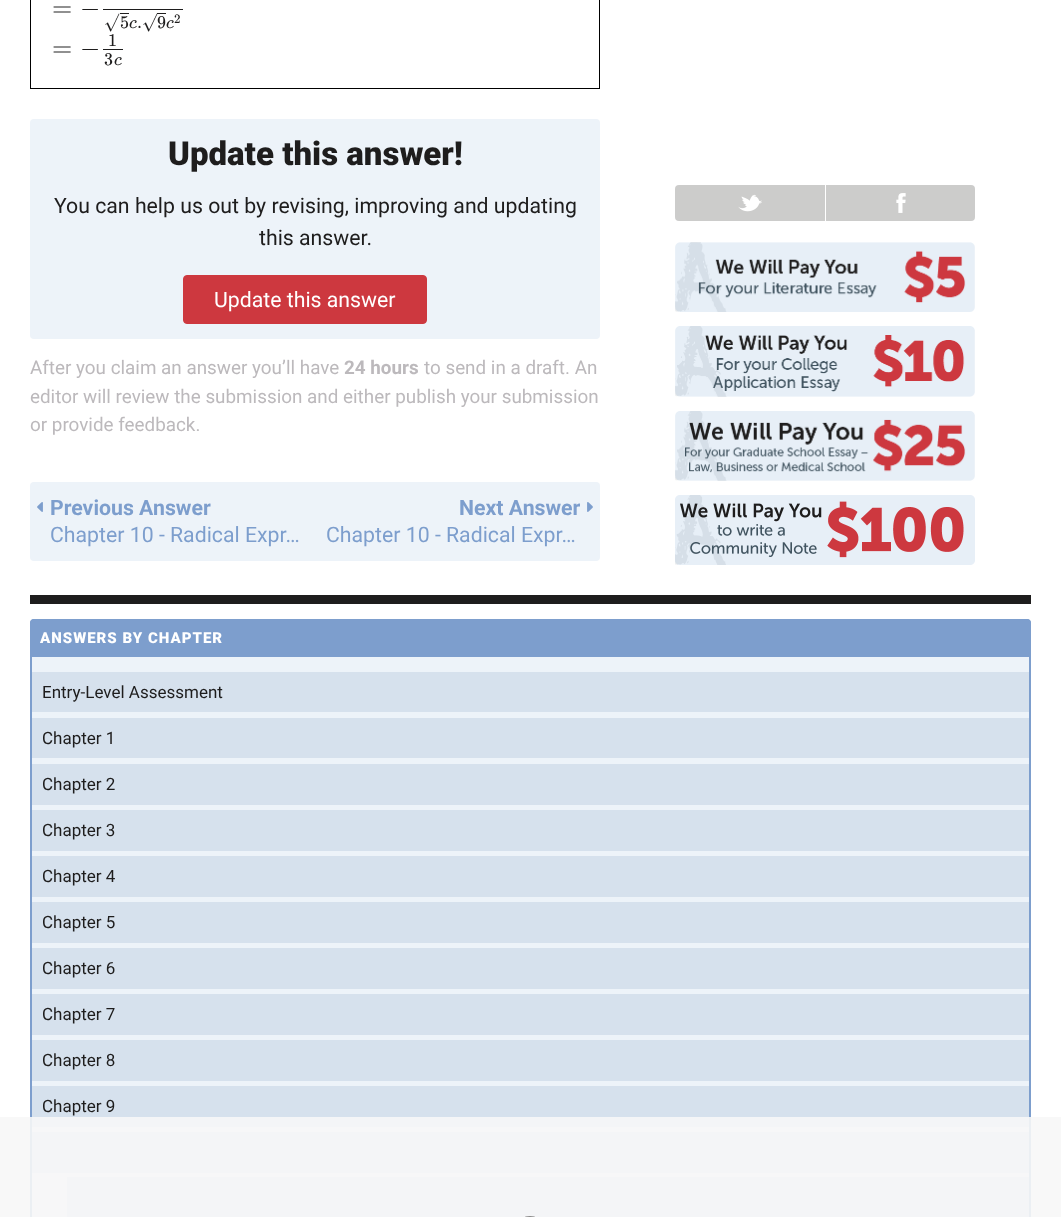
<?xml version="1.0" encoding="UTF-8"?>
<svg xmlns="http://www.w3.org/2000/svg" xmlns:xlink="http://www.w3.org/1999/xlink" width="1061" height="1217">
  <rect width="100%" height="100%" fill="#ffffff" />
  <rect x="30.5" y="-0.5" width="569" height="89" fill="none" stroke="#000000" />
  <rect x="103" y="9" width="80" height="1" fill="#1e1d1d" />
  <rect x="120" y="13" width="9" height="1" fill="#1e1d1d" />
  <rect x="157" y="13" width="9" height="1" fill="#1e1d1d" />
  <rect x="103" y="49" width="20" height="1" fill="#1e1d1d" />
  <rect x="30" y="119" width="570" height="220" rx="4" fill="#edf3f9" />
  <rect x="183.5" y="275.5" width="243" height="48" rx="3.5" fill="#cd383f" stroke="#cd383f" />
  <rect x="30" y="482" width="570" height="79" rx="4" fill="#edf3f9" />
  <image x="37" y="502" width="6" height="10" xlink:href="image1.png" />
  <image x="587" y="502" width="6" height="10" xlink:href="image2.png" />
  <rect x="675" y="185" width="300" height="36" rx="4" fill="#cccccb" />
  <image x="738" y="194" width="24" height="18" xlink:href="image3.png" />
  <rect x="825" y="185" width="1" height="36" fill="#ffffff" />
  <image x="896" y="193" width="10" height="20" xlink:href="image4.png" />
  <image x="675" y="242" width="300" height="70" xlink:href="image5.png" />
  <image x="675" y="326" width="300" height="71" xlink:href="image6.png" />
  <image x="675" y="411" width="300" height="70" xlink:href="image7.png" />
  <image x="675" y="495" width="300" height="70" xlink:href="image8.png" />
  <rect x="30" y="595" width="1001" height="9" fill="#1e1d1d" />
  <rect x="31" y="620" width="999" height="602" rx="3" fill="#edf3f9" stroke="#7d9ecd" stroke-width="2" />
  <path d="M 34 619 h 993 c 2 0 4 2 4 4 v 34 h -1001 v -34 c 0 -2 2 -4 4 -4 z" fill="#7d9ecd" />
  <rect x="32" y="672" width="997" height="40" fill="#d6e1ed" />
  <rect x="32" y="718" width="997" height="40" fill="#d6e1ed" />
  <rect x="32" y="764" width="997" height="41" fill="#d6e1ed" />
  <rect x="32" y="810" width="997" height="41" fill="#d6e1ed" />
  <rect x="32" y="856" width="997" height="41" fill="#d6e1ed" />
  <rect x="32" y="902" width="997" height="41" fill="#d6e1ed" />
  <rect x="32" y="948" width="997" height="41" fill="#d6e1ed" />
  <rect x="32" y="994" width="997" height="41" fill="#d6e1ed" />
  <rect x="32" y="1040" width="997" height="41" fill="#d6e1ed" />
  <rect x="32" y="1086" width="997" height="41" fill="#d6e1ed" />
  <rect x="32" y="1132" width="997" height="41" fill="#d6e1ed" />
  <rect x="67" y="1177" width="962" height="40" fill="#d6e1ed" />
  <rect y="1117" width="1061" height="100" fill="#f7f7f7" fill-opacity="0.9" />
  <rect x="519.5" y="1216.5" width="21" height="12" rx="10.5" fill="none" stroke="#888888" />
  <text x="52" y="16" style="font-family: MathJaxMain; font-size: 26px; fill: #1e1d1d">=</text>
  <text x="80" y="16" style="font-family: MathJaxMain; font-size: 26px; fill: #1e1d1d">−</text>
  <text x="104" y="28" style="font-family: MathJaxMain; font-size: 18px; fill: #1e1d1d">√</text>
  <text x="120" y="28" style="font-family: MathJaxMain; font-size: 18px; fill: #1e1d1d">5</text>
  <text x="129" y="28" style="font-family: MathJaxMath; font-size: 18px; font-style: italic; fill: #1e1d1d">c</text>
  <text x="137" y="28" style="font-family: MathJaxMain; font-size: 18px; fill: #1e1d1d">.</text>
  <text x="157" y="28" style="font-family: MathJaxMain; font-size: 18px; fill: #1e1d1d">9</text>
  <text x="142" y="28" style="font-family: MathJaxMain; font-size: 18px; fill: #1e1d1d">√</text>
  <text x="166" y="28" style="font-family: MathJaxMath; font-size: 18px; font-style: italic; fill: #1e1d1d">c</text>
  <text x="174" y="23" style="font-family: MathJaxMain; font-size: 13px; fill: #1e1d1d">2</text>
  <text x="52" y="56" style="font-family: MathJaxMain; font-size: 26px; fill: #1e1d1d">=</text>
  <text x="80" y="56" style="font-family: MathJaxMain; font-size: 26px; fill: #1e1d1d">−</text>
  <text x="108" y="46" style="font-family: MathJaxMain; font-size: 18px; fill: #1e1d1d">1</text>
  <text x="104" y="65" style="font-family: MathJaxMain; font-size: 18px; fill: #1e1d1d">3</text>
  <text x="114" y="65" style="font-family: MathJaxMath; font-size: 18px; font-style: italic; fill: #1e1d1d">c</text>
  <text x="168" y="165" style="font-family: Roboto; font-size: 33px; font-weight: 900; fill: #1e1d1d">Update this answer!</text>
  <text x="54" y="213" style="font-family: Roboto; font-size: 21.25px; fill: #1e1d1d">You can help us out by revising, improving and updating</text>
  <text x="259" y="245" style="font-family: Roboto; font-size: 21.25px; fill: #1e1d1d">this answer.</text>
  <text x="214" y="307" style="font-family: Roboto; font-size: 21.25px; fill: #ffffff">Update this answer</text>
  <text x="30" y="374" style="font-family: Roboto; font-size: 18.85px; fill: #bcb9bc">After you claim an answer you’ll have</text>
  <text x="344" y="374" style="font-family: Roboto; font-size: 18.85px; font-weight: bold; fill: #bcb9bc">24 hours</text>
  <text x="424" y="374" style="font-family: Roboto; font-size: 18.85px; fill: #bcb9bc">to send in a draft. An</text>
  <text x="30" y="403" style="font-family: Roboto; font-size: 18.85px; fill: #bcb9bc">editor will review the submission and either publish your submission</text>
  <text x="30" y="431" style="font-family: Roboto; font-size: 18.85px; fill: #bcb9bc">or provide feedback.</text>
  <text x="50" y="515" style="font-family: Roboto; font-size: 21.25px; font-weight: bold; fill: #7d9ecd">Previous Answer</text>
  <text x="50" y="542" style="font-family: Roboto; font-size: 21.25px; fill: #7d9ecd">Chapter 10 - Radical Expr…</text>
  <text x="459" y="515" style="font-family: Roboto; font-size: 21.25px; font-weight: bold; fill: #7d9ecd">Next Answer</text>
  <text x="326" y="542" style="font-family: Roboto; font-size: 21.25px; fill: #7d9ecd">Chapter 10 - Radical Expr…</text>
  <text x="40" y="643" style="font-family: Roboto; font-size: 15px; font-weight: 900; letter-spacing: 1px; fill: #ffffff">ANSWERS BY CHAPTER</text>
  <text x="42" y="698" style="font-family: Roboto; font-size: 17px; fill: #1e1d1d">Entry-Level Assessment</text>
  <text x="42" y="744" style="font-family: Roboto; font-size: 17px; fill: #1e1d1d">Chapter 1</text>
  <text x="42" y="790" style="font-family: Roboto; font-size: 17px; fill: #1e1d1d">Chapter 2</text>
  <text x="42" y="836" style="font-family: Roboto; font-size: 17px; fill: #1e1d1d">Chapter 3</text>
  <text x="42" y="882" style="font-family: Roboto; font-size: 17px; fill: #1e1d1d">Chapter 4</text>
  <text x="42" y="928" style="font-family: Roboto; font-size: 17px; fill: #1e1d1d">Chapter 5</text>
  <text x="42" y="974" style="font-family: Roboto; font-size: 17px; fill: #1e1d1d">Chapter 6</text>
  <text x="42" y="1020" style="font-family: Roboto; font-size: 17px; fill: #1e1d1d">Chapter 7</text>
  <text x="42" y="1066" style="font-family: Roboto; font-size: 17px; fill: #1e1d1d">Chapter 8</text>
  <text x="42" y="1112" style="font-family: Roboto; font-size: 17px; fill: #1e1d1d">Chapter 9</text>
</svg>
